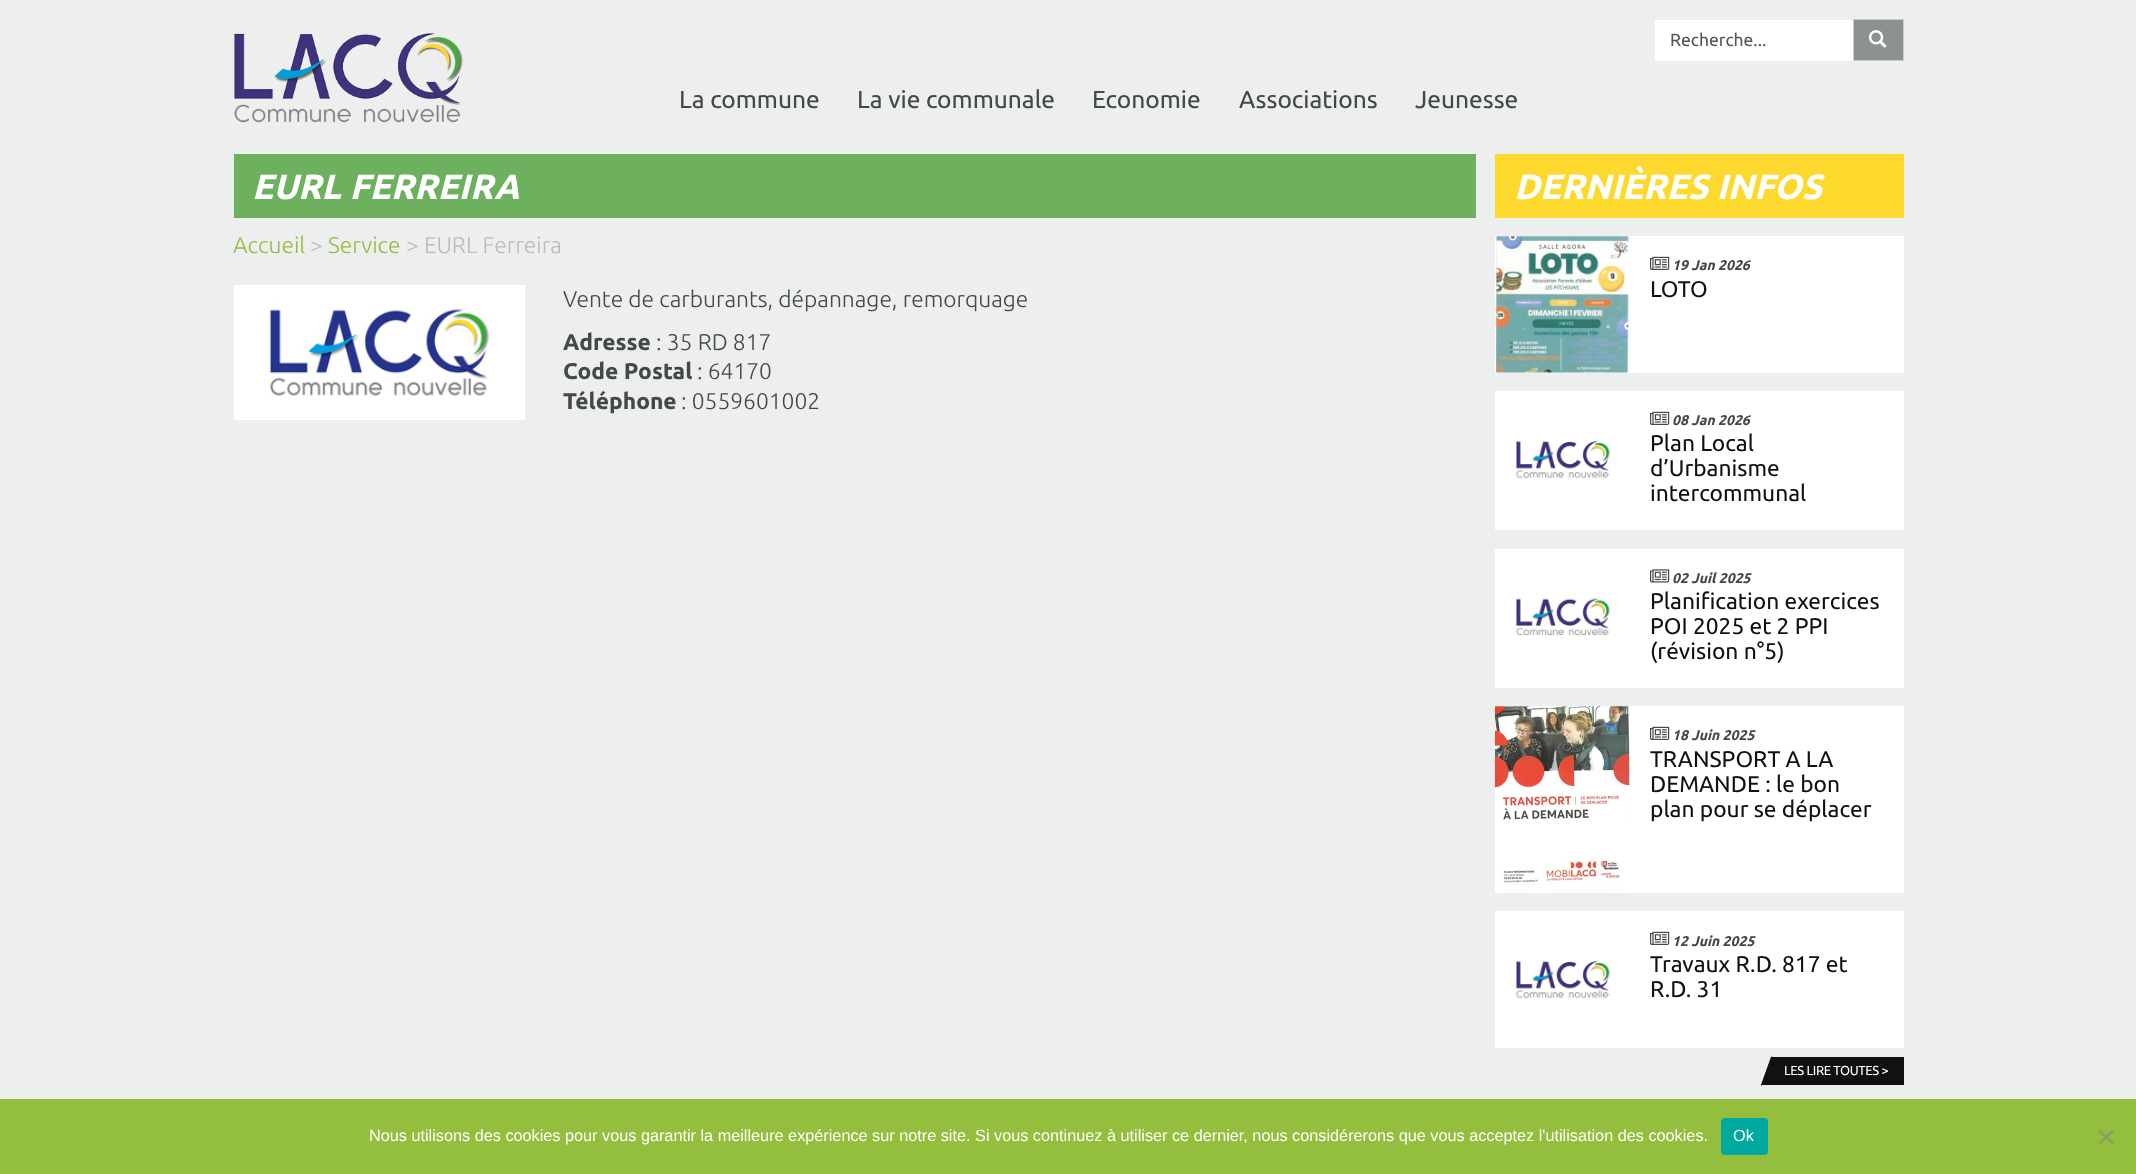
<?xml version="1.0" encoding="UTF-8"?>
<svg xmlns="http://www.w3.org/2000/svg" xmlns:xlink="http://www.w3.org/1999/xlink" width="2136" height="1174">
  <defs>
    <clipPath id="clip1"><rect x="1495" y="1056" width="409" height="29" /></clipPath>
  </defs>
  <rect width="100%" height="100%" fill="#edefee" />
  <image x="234" y="33" width="229" height="90" xlink:href="image1.png" />
  <rect x="1655" y="20" width="198" height="41" fill="#ffffff" />
  <rect x="1655" y="19" width="199" height="1" fill="#ececec" />
  <rect x="1853.5" y="19.5" width="50" height="41" fill="#8e9192" stroke="#cccccc" />
  <image x="1868" y="30" width="19" height="18" xlink:href="image2.png" />
  <rect x="234" y="154" width="1242" height="64" fill="#6db15e" />
  <image x="233" y="285" width="292" height="135" xlink:href="image3.png" />
  <rect x="1495" y="154" width="409" height="64" fill="#fdd92d" />
  <rect x="1495" y="236" width="409" height="137" fill="#ffffff" />
  <image x="1495" y="236" width="136" height="137" xlink:href="image4.png" />
  <image x="1650" y="256" width="20" height="14" xlink:href="image5.png" />
  <rect x="1495" y="391" width="409" height="139" fill="#ffffff" />
  <image x="1513" y="440" width="99" height="39" xlink:href="image6.png" />
  <image x="1650" y="411" width="20" height="14" xlink:href="image5.png" />
  <rect x="1495" y="549" width="409" height="139" fill="#ffffff" />
  <image x="1495" y="548" width="136" height="88" xlink:href="image7.png" />
  <image x="1650" y="569" width="20" height="14" xlink:href="image8.png" />
  <rect x="1495" y="706" width="409" height="187" fill="#ffffff" />
  <image x="1495" y="706" width="136" height="186" xlink:href="image9.png" />
  <image x="1650" y="726" width="20" height="14" xlink:href="image5.png" />
  <rect x="1495" y="911" width="409" height="137" fill="#ffffff" />
  <image x="1513" y="960" width="99" height="39" xlink:href="image6.png" />
  <image x="1650" y="931" width="20" height="14" xlink:href="image5.png" />
  <g clip-path="url(#clip1)">
    <path d="M 1771 1057 h 143 l -10 28 h -143 z" fill="#111111" />
  </g>
  <path d="M 1771.5 1056.5 h 1 l -10.5 29 h -1 z" fill="#111111" />
  <rect y="1099" width="2136" height="75" fill="#94be3d" />
  <rect x="1721" y="1118" width="47" height="37" rx="4" fill="#00a99d" />
  <path d="M 2112 1129.5 l 2 2 l -13.5 13 l -2 -1.5 z" fill="#8a9f5f" />
  <path d="M 2098.5 1131.5 l 2 -2 l 13.5 13.5 l -2 1.5 z" fill="#8a9f5f" />
  <text x="1670" y="46" style="font-family: Ubuntu; font-size: 17.5px; fill: #555555">Recherche...</text>
  <text x="679" y="108" style="font-family: Ubuntu; font-size: 24.5px; fill: #454849">La commune</text>
  <text x="857" y="108" style="font-family: Ubuntu; font-size: 24.5px; fill: #454849">La vie communale</text>
  <text x="1092" y="108" style="font-family: Ubuntu; font-size: 24.5px; fill: #454849">Economie</text>
  <text x="1239" y="108" style="font-family: Ubuntu; font-size: 24.5px; fill: #454849">Associations</text>
  <text x="1415" y="108" style="font-family: Ubuntu; font-size: 24.5px; fill: #454849">Jeunesse</text>
  <text x="252" y="199" style="font-family: Ubuntu; font-size: 35px; font-weight: bold; font-style: italic; fill: #ffffff">EURL FERREIRA</text>
  <text x="233" y="253" style="font-family: Ubuntu; font-size: 22.75px; font-weight: 300; fill: #93bd3d">Accueil</text>
  <text x="310" y="253" style="font-family: Ubuntu; font-size: 22.75px; font-weight: 300; fill: #bbbbbb">&gt;</text>
  <text x="328" y="253" style="font-family: Ubuntu; font-size: 22.75px; font-weight: 300; fill: #93bd3d">Service</text>
  <text x="406" y="253" style="font-family: Ubuntu; font-size: 22.75px; font-weight: 300; fill: #bbbbbb">&gt; EURL Ferreira</text>
  <text x="563" y="307" style="font-family: Ubuntu; font-size: 22.75px; font-weight: 300; fill: #454849">Vente de carburants, dépannage, remorquage</text>
  <text x="563" y="350" style="font-family: Ubuntu; font-size: 22.75px; font-weight: bold; fill: #454849">Adresse</text>
  <text x="656" y="350" style="font-family: Ubuntu; font-size: 22.75px; font-weight: 300; fill: #454849">: 35 RD 817</text>
  <text x="563" y="379" style="font-family: Ubuntu; font-size: 22.75px; font-weight: bold; fill: #454849">Code Postal</text>
  <text x="697" y="379" style="font-family: Ubuntu; font-size: 22.75px; font-weight: 300; fill: #454849">: 64170</text>
  <text x="563" y="409" style="font-family: Ubuntu; font-size: 22.75px; font-weight: bold; fill: #454849">Téléphone</text>
  <text x="681" y="409" style="font-family: Ubuntu; font-size: 22.75px; font-weight: 300; fill: #454849">: 0559601002</text>
  <text x="1514" y="199" style="font-family: Ubuntu; font-size: 35px; font-weight: bold; font-style: italic; fill: #ffffff">DERNIÈRES INFOS</text>
  <text x="1672" y="270" style="font-family: Ubuntu; font-size: 14px; font-weight: bold; font-style: italic; fill: #454849">19 Jan 2026</text>
  <text x="1650" y="297" style="font-family: Ubuntu; font-size: 22.75px; fill: #111111">LOTO</text>
  <text x="1672" y="425" style="font-family: Ubuntu; font-size: 14px; font-weight: bold; font-style: italic; fill: #454849">08 Jan 2026</text>
  <text x="1650" y="451" style="font-family: Ubuntu; font-size: 22.75px; fill: #111111">Plan Local</text>
  <text x="1650" y="476" style="font-family: Ubuntu; font-size: 22.75px; fill: #111111">d’Urbanisme</text>
  <text x="1650" y="501" style="font-family: Ubuntu; font-size: 22.75px; fill: #111111">intercommunal</text>
  <text x="1672" y="583" style="font-family: Ubuntu; font-size: 14px; font-weight: bold; font-style: italic; fill: #454849">02 Juil 2025</text>
  <text x="1650" y="609" style="font-family: Ubuntu; font-size: 22.75px; fill: #111111">Planification exercices</text>
  <text x="1650" y="634" style="font-family: Ubuntu; font-size: 22.75px; fill: #111111">POI 2025 et 2 PPI</text>
  <text x="1650" y="659" style="font-family: Ubuntu; font-size: 22.75px; fill: #111111">(révision n°5)</text>
  <text x="1672" y="740" style="font-family: Ubuntu; font-size: 14px; font-weight: bold; font-style: italic; fill: #454849">18 Juin 2025</text>
  <text x="1650" y="767" style="font-family: Ubuntu; font-size: 22.75px; fill: #111111">TRANSPORT A LA</text>
  <text x="1650" y="792" style="font-family: Ubuntu; font-size: 22.75px; fill: #111111">DEMANDE : le bon</text>
  <text x="1650" y="817" style="font-family: Ubuntu; font-size: 22.75px; fill: #111111">plan pour se déplacer</text>
  <text x="1672" y="946" style="font-family: Ubuntu; font-size: 14px; font-weight: bold; font-style: italic; fill: #454849">12 Juin 2025</text>
  <text x="1650" y="972" style="font-family: Ubuntu; font-size: 22.75px; fill: #111111">Travaux R.D. 817 et</text>
  <text x="1650" y="997" style="font-family: Ubuntu; font-size: 22.75px; fill: #111111">R.D. 31</text>
  <text x="1784" y="1075" style="font-family: Ubuntu; font-size: 13px; letter-spacing: -0.4px; fill: #ffffff">LES LIRE TOUTES &gt;</text>
  <text x="369" y="1141" style="font-family: Liberation Sans; font-size: 16.25px; fill: #ffffff">Nous utilisons des cookies pour vous garantir la meilleure expérience sur notre site. Si vous continuez à utiliser ce dernier, nous considérerons que vous acceptez l'utilisation des cookies.</text>
  <text x="1733" y="1141" style="font-family: Liberation Sans; font-size: 16.25px; fill: #ffffff">Ok</text>
</svg>
